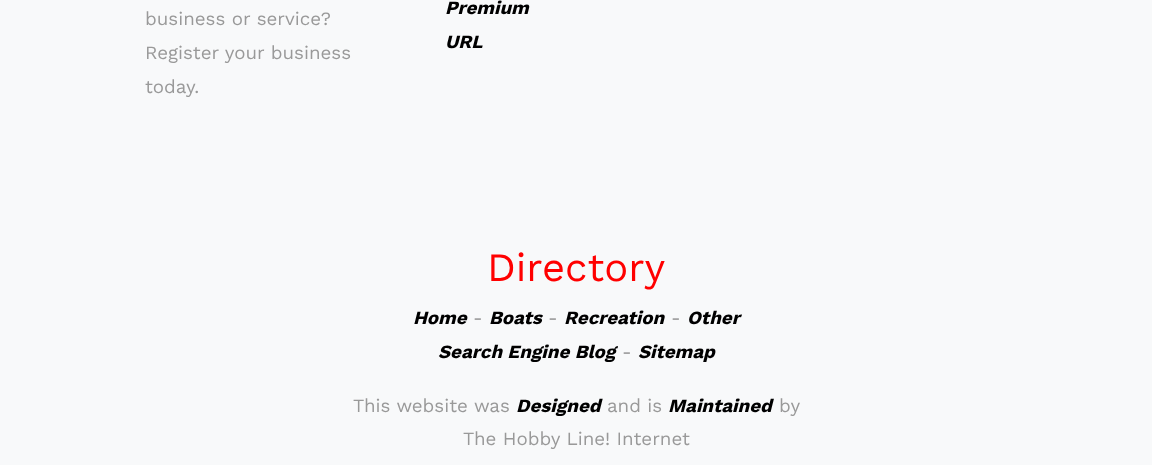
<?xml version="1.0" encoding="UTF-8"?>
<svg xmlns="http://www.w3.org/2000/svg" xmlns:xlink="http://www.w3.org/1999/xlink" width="1152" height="465">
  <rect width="100%" height="100%" fill="#f8f9fa" />
  <text x="145" y="25" style="font-family: Work Sans; font-size: 18.75px; fill: #999999">business or service?</text>
  <text x="145" y="59" style="font-family: Work Sans; font-size: 18.75px; fill: #999999">Register your business</text>
  <text x="145" y="93" style="font-family: Work Sans; font-size: 18.75px; fill: #999999">today.</text>
  <text x="445" y="14" style="font-family: Work Sans; font-size: 18.75px; font-weight: bold; font-style: italic; fill: #000000">Premium</text>
  <text x="445" y="48" style="font-family: Work Sans; font-size: 18.75px; font-weight: bold; font-style: italic; fill: #000000">URL</text>
  <text x="487" y="281" style="font-family: Work Sans; font-size: 40px; fill: #ff0000">Directory</text>
  <text x="413" y="324" style="font-family: Work Sans; font-size: 18.75px; font-weight: bold; font-style: italic; fill: #000000">Home</text>
  <text x="473" y="324" style="font-family: Work Sans; font-size: 18.75px; fill: #999999">-</text>
  <text x="489" y="324" style="font-family: Work Sans; font-size: 18.75px; font-weight: bold; font-style: italic; fill: #000000">Boats</text>
  <text x="548" y="324" style="font-family: Work Sans; font-size: 18.75px; fill: #999999">-</text>
  <text x="564" y="324" style="font-family: Work Sans; font-size: 18.75px; font-weight: bold; font-style: italic; fill: #000000">Recreation</text>
  <text x="671" y="324" style="font-family: Work Sans; font-size: 18.75px; fill: #999999">-</text>
  <text x="687" y="324" style="font-family: Work Sans; font-size: 18.75px; font-weight: bold; font-style: italic; fill: #000000">Other</text>
  <text x="438" y="358" style="font-family: Work Sans; font-size: 18.75px; font-weight: bold; font-style: italic; fill: #000000">Search Engine Blog</text>
  <text x="622" y="358" style="font-family: Work Sans; font-size: 18.75px; fill: #999999">-</text>
  <text x="638" y="358" style="font-family: Work Sans; font-size: 18.75px; font-weight: bold; font-style: italic; fill: #000000">Sitemap</text>
  <text x="353" y="412" style="font-family: Work Sans; font-size: 18.75px; fill: #999999">This website was</text>
  <text x="516" y="412" style="font-family: Work Sans; font-size: 18.75px; font-weight: bold; font-style: italic; fill: #000000">Designed</text>
  <text x="607" y="412" style="font-family: Work Sans; font-size: 18.75px; fill: #999999">and is</text>
  <text x="668" y="412" style="font-family: Work Sans; font-size: 18.75px; font-weight: bold; font-style: italic; fill: #000000">Maintained</text>
  <text x="779" y="412" style="font-family: Work Sans; font-size: 18.75px; fill: #999999">by</text>
  <text x="463" y="445" style="font-family: Work Sans; font-size: 18.75px; fill: #999999">The Hobby Line! Internet</text>
</svg>
